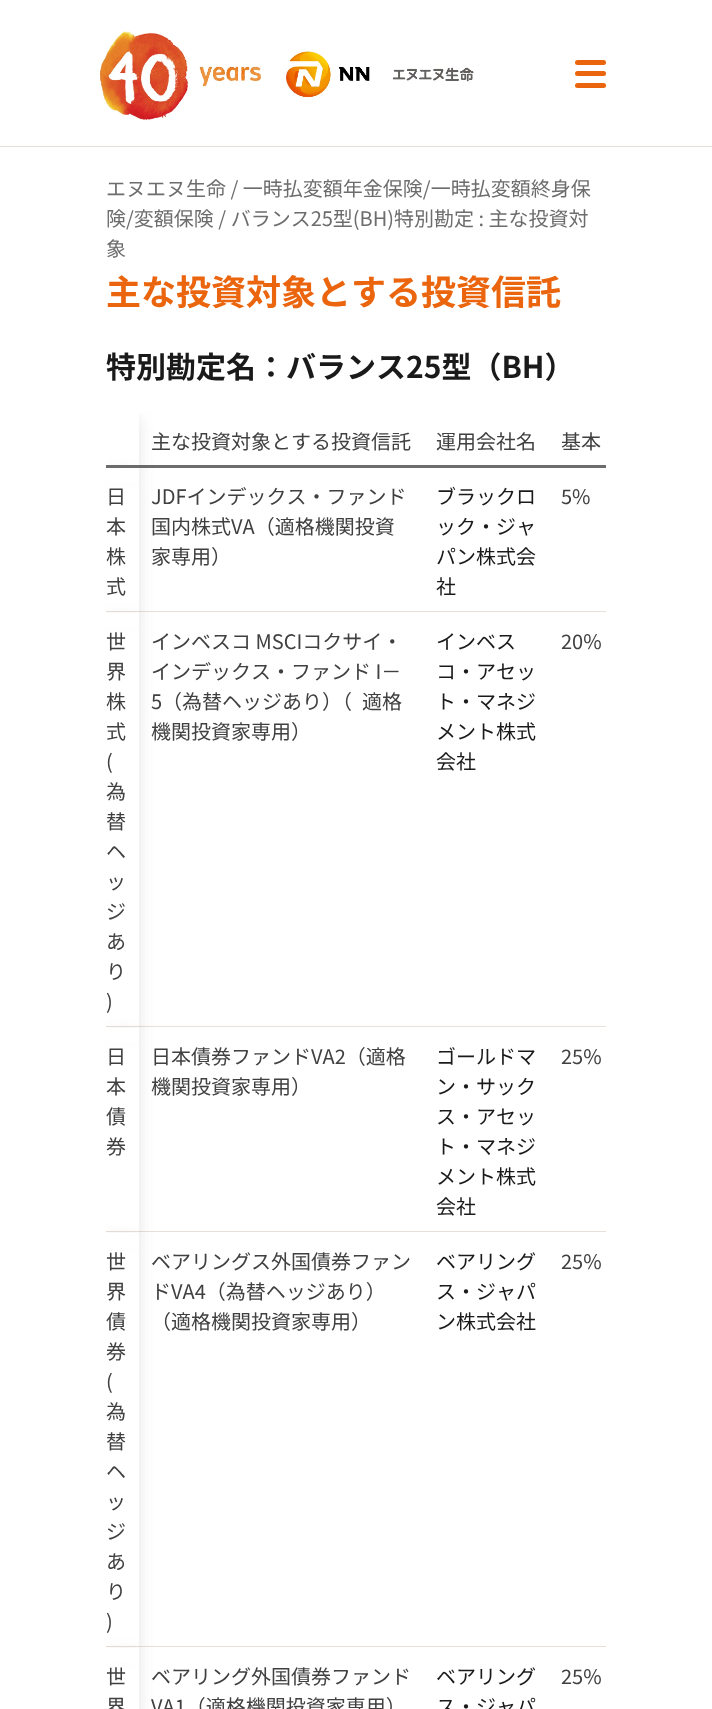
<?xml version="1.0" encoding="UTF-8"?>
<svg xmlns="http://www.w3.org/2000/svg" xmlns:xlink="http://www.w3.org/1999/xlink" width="712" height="1709">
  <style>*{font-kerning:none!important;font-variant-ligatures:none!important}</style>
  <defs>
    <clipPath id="clip1"><rect x="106" y="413" width="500" height="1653" /></clipPath>
    <clipPath id="clip2"><path d="M 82 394 h 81 v 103 h -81 z m 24 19 h 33 v 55 h -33 z" clip-rule="evenodd" /></clipPath>
    <clipPath id="clip3"><path d="M 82 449 h 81 v 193 h -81 z m 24 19 h 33 v 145 h -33 z" clip-rule="evenodd" /></clipPath>
    <clipPath id="clip4"><path d="M 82 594 h 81 v 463 h -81 z m 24 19 h 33 v 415 h -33 z" clip-rule="evenodd" /></clipPath>
    <clipPath id="clip5"><path d="M 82 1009 h 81 v 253 h -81 z m 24 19 h 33 v 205 h -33 z" clip-rule="evenodd" /></clipPath>
    <clipPath id="clip6"><path d="M 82 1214 h 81 v 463 h -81 z m 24 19 h 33 v 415 h -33 z" clip-rule="evenodd" /></clipPath>
    <clipPath id="clip7"><path d="M 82 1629 h 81 v 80 h -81 z m 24 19 h 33 v 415 h -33 z" clip-rule="evenodd" /></clipPath>
  </defs>
  <rect width="100%" height="100%" fill="#ffffff" />
  <rect y="146" width="712" height="1" fill="#e5ded9" />
  <image x="99" y="31" width="375" height="91" xlink:href="image1.png" />
  <rect x="575" y="60" width="31" height="5" rx="2.5" fill="#ea650d" />
  <rect x="575" y="71" width="31" height="5" rx="2.5" fill="#ea650d" />
  <rect x="575" y="83" width="31" height="5" rx="2.5" fill="#ea650d" />
  <rect x="106" y="465" width="500" height="3" fill="#6d6d6d" />
  <g clip-path="url(#clip1)">
    <g clip-path="url(#clip2)">
      <rect x="106" y="418" width="33" height="55" fill="#414141" fill-opacity="0.15" filter="blur(7.5px)" />
    </g>
  </g>
  <rect x="106" y="468" width="33" height="15" fill="#ffffff" />
  <rect x="106" y="611" width="500" height="1" fill="#e6dfda" />
  <g clip-path="url(#clip1)">
    <g clip-path="url(#clip3)">
      <rect x="106" y="473" width="33" height="145" fill="#414141" fill-opacity="0.15" filter="blur(7.5px)" />
    </g>
  </g>
  <rect x="106" y="613" width="33" height="15" fill="#ffffff" />
  <rect x="106" y="1026" width="500" height="1" fill="#e6dfda" />
  <g clip-path="url(#clip1)">
    <g clip-path="url(#clip4)">
      <rect x="106" y="618" width="33" height="415" fill="#414141" fill-opacity="0.15" filter="blur(7.5px)" />
    </g>
  </g>
  <rect x="106" y="1028" width="33" height="15" fill="#ffffff" />
  <rect x="106" y="1231" width="500" height="1" fill="#e6dfda" />
  <g clip-path="url(#clip1)">
    <g clip-path="url(#clip5)">
      <rect x="106" y="1033" width="33" height="205" fill="#414141" fill-opacity="0.15" filter="blur(7.5px)" />
    </g>
  </g>
  <rect x="106" y="1233" width="33" height="15" fill="#ffffff" />
  <rect x="106" y="1646" width="500" height="1" fill="#e6dfda" />
  <g clip-path="url(#clip1)">
    <g clip-path="url(#clip6)">
      <rect x="106" y="1238" width="33" height="415" fill="#414141" fill-opacity="0.15" filter="blur(7.5px)" />
    </g>
  </g>
  <rect x="106" y="1648" width="33" height="15" fill="#ffffff" />
  <g clip-path="url(#clip1)">
    <g clip-path="url(#clip7)">
      <rect x="106" y="1653" width="33" height="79" fill="#414141" fill-opacity="0.15" filter="blur(7.5px)" />
    </g>
  </g>
  <text x="106" y="196" style="font-family: Noto Sans JP; font-size: 20px; fill: #6d6d6d">エヌエヌ生命 / 一時払変額年金保険/一時払変額終身保</text>
  <text x="106" y="226" style="font-family: Noto Sans JP; font-size: 20px; fill: #6d6d6d">険/変額保険 / バランス25型(BH)特別勘定 : 主な投資対</text>
  <text x="106" y="256" style="font-family: Noto Sans JP; font-size: 20px; fill: #6d6d6d">象</text>
  <text x="106" y="305" style="font-family: Noto Sans JP; font-size: 35px; font-weight: bold; fill: #ea650d">主な投資対象とする投資信託</text>
  <text x="106" y="378" style="font-family: Noto Sans JP; font-size: 30px; font-weight: bold; fill: #1a1a1a">特別勘定名：バランス25型（BH）</text>
  <text x="151" y="449" style="font-family: Noto Sans JP; font-size: 20px; fill: #404040">主な投資対象とする投資信託</text>
  <text x="436" y="449" style="font-family: Noto Sans JP; font-size: 20px; fill: #404040">運用会社名</text>
  <text x="561" y="449" style="font-family: Noto Sans JP; font-size: 20px; fill: #404040">基本</text>
  <text x="106" y="504" style="font-family: Noto Sans JP; font-size: 20px; fill: #404040">日</text>
  <text x="106" y="534" style="font-family: Noto Sans JP; font-size: 20px; fill: #404040">本</text>
  <text x="106" y="564" style="font-family: Noto Sans JP; font-size: 20px; fill: #404040">株</text>
  <text x="106" y="594" style="font-family: Noto Sans JP; font-size: 20px; fill: #404040">式</text>
  <text x="151" y="504" style="font-family: Noto Sans JP; font-size: 20px; fill: #404040">JDFインデックス・ファンド</text>
  <text x="151" y="534" style="font-family: Noto Sans JP; font-size: 20px; fill: #404040">国内株式VA（適格機関投資</text>
  <text x="151" y="564" style="font-family: Noto Sans JP; font-size: 20px; fill: #404040">家専用）</text>
  <text x="436" y="504" style="font-family: Noto Sans JP; font-size: 20px; fill: #1a1a1a">ブラックロ</text>
  <text x="436" y="534" style="font-family: Noto Sans JP; font-size: 20px; fill: #1a1a1a">ック・ジャ</text>
  <text x="436" y="564" style="font-family: Noto Sans JP; font-size: 20px; fill: #1a1a1a">パン株式会</text>
  <text x="436" y="594" style="font-family: Noto Sans JP; font-size: 20px; fill: #1a1a1a">社</text>
  <text x="561" y="504" style="font-family: Noto Sans JP; font-size: 20px; fill: #404040">5%</text>
  <text x="106" y="649" style="font-family: Noto Sans JP; font-size: 20px; fill: #404040">世</text>
  <text x="106" y="679" style="font-family: Noto Sans JP; font-size: 20px; fill: #404040">界</text>
  <text x="106" y="709" style="font-family: Noto Sans JP; font-size: 20px; fill: #404040">株</text>
  <text x="106" y="739" style="font-family: Noto Sans JP; font-size: 20px; fill: #404040">式</text>
  <text x="106" y="769" style="font-family: Noto Sans JP; font-size: 20px; fill: #404040">(</text>
  <text x="106" y="799" style="font-family: Noto Sans JP; font-size: 20px; fill: #404040">為</text>
  <text x="106" y="829" style="font-family: Noto Sans JP; font-size: 20px; fill: #404040">替</text>
  <text x="106" y="859" style="font-family: Noto Sans JP; font-size: 20px; fill: #404040">ヘ</text>
  <text x="106" y="889" style="font-family: Noto Sans JP; font-size: 20px; fill: #404040">ッ</text>
  <text x="106" y="919" style="font-family: Noto Sans JP; font-size: 20px; fill: #404040">ジ</text>
  <text x="106" y="949" style="font-family: Noto Sans JP; font-size: 20px; fill: #404040">あ</text>
  <text x="106" y="979" style="font-family: Noto Sans JP; font-size: 20px; fill: #404040">り</text>
  <text x="106" y="1009" style="font-family: Noto Sans JP; font-size: 20px; fill: #404040">)</text>
  <text x="151" y="649" style="font-family: Noto Sans JP; font-size: 20px; fill: #404040">インベスコ MSCIコクサイ・</text>
  <text x="151" y="679" style="font-family: Noto Sans JP; font-size: 20px; fill: #404040">インデックス・ファンド I－</text>
  <text x="151" y="709" style="font-family: Noto Sans JP; font-size: 20px; fill: #404040">5（為替ヘッジあり）（</text>
  <text x="362" y="709" style="font-family: Noto Sans JP; font-size: 20px; fill: #404040">適格</text>
  <text x="151" y="739" style="font-family: Noto Sans JP; font-size: 20px; fill: #404040">機関投資家専用）</text>
  <text x="436" y="649" style="font-family: Noto Sans JP; font-size: 20px; fill: #1a1a1a">インベス</text>
  <text x="436" y="679" style="font-family: Noto Sans JP; font-size: 20px; fill: #1a1a1a">コ・アセッ</text>
  <text x="436" y="709" style="font-family: Noto Sans JP; font-size: 20px; fill: #1a1a1a">ト・マネジ</text>
  <text x="436" y="739" style="font-family: Noto Sans JP; font-size: 20px; fill: #1a1a1a">メント株式</text>
  <text x="436" y="769" style="font-family: Noto Sans JP; font-size: 20px; fill: #1a1a1a">会社</text>
  <text x="561" y="649" style="font-family: Noto Sans JP; font-size: 20px; fill: #404040">20%</text>
  <text x="106" y="1064" style="font-family: Noto Sans JP; font-size: 20px; fill: #404040">日</text>
  <text x="106" y="1094" style="font-family: Noto Sans JP; font-size: 20px; fill: #404040">本</text>
  <text x="106" y="1124" style="font-family: Noto Sans JP; font-size: 20px; fill: #404040">債</text>
  <text x="106" y="1154" style="font-family: Noto Sans JP; font-size: 20px; fill: #404040">券</text>
  <text x="151" y="1064" style="font-family: Noto Sans JP; font-size: 20px; fill: #404040">日本債券ファンドVA2（適格</text>
  <text x="151" y="1094" style="font-family: Noto Sans JP; font-size: 20px; fill: #404040">機関投資家専用）</text>
  <text x="436" y="1064" style="font-family: Noto Sans JP; font-size: 20px; fill: #1a1a1a">ゴールドマ</text>
  <text x="436" y="1094" style="font-family: Noto Sans JP; font-size: 20px; fill: #1a1a1a">ン・サック</text>
  <text x="436" y="1124" style="font-family: Noto Sans JP; font-size: 20px; fill: #1a1a1a">ス・アセッ</text>
  <text x="436" y="1154" style="font-family: Noto Sans JP; font-size: 20px; fill: #1a1a1a">ト・マネジ</text>
  <text x="436" y="1184" style="font-family: Noto Sans JP; font-size: 20px; fill: #1a1a1a">メント株式</text>
  <text x="436" y="1214" style="font-family: Noto Sans JP; font-size: 20px; fill: #1a1a1a">会社</text>
  <text x="561" y="1064" style="font-family: Noto Sans JP; font-size: 20px; fill: #404040">25%</text>
  <text x="106" y="1269" style="font-family: Noto Sans JP; font-size: 20px; fill: #404040">世</text>
  <text x="106" y="1299" style="font-family: Noto Sans JP; font-size: 20px; fill: #404040">界</text>
  <text x="106" y="1329" style="font-family: Noto Sans JP; font-size: 20px; fill: #404040">債</text>
  <text x="106" y="1359" style="font-family: Noto Sans JP; font-size: 20px; fill: #404040">券</text>
  <text x="106" y="1389" style="font-family: Noto Sans JP; font-size: 20px; fill: #404040">(</text>
  <text x="106" y="1419" style="font-family: Noto Sans JP; font-size: 20px; fill: #404040">為</text>
  <text x="106" y="1449" style="font-family: Noto Sans JP; font-size: 20px; fill: #404040">替</text>
  <text x="106" y="1479" style="font-family: Noto Sans JP; font-size: 20px; fill: #404040">ヘ</text>
  <text x="106" y="1509" style="font-family: Noto Sans JP; font-size: 20px; fill: #404040">ッ</text>
  <text x="106" y="1539" style="font-family: Noto Sans JP; font-size: 20px; fill: #404040">ジ</text>
  <text x="106" y="1569" style="font-family: Noto Sans JP; font-size: 20px; fill: #404040">あ</text>
  <text x="106" y="1599" style="font-family: Noto Sans JP; font-size: 20px; fill: #404040">り</text>
  <text x="106" y="1629" style="font-family: Noto Sans JP; font-size: 20px; fill: #404040">)</text>
  <text x="151" y="1269" style="font-family: Noto Sans JP; font-size: 20px; fill: #404040">ベアリングス外国債券ファン</text>
  <text x="151" y="1299" style="font-family: Noto Sans JP; font-size: 20px; fill: #404040">ドVA4（為替ヘッジあり）</text>
  <text x="151" y="1329" style="font-family: Noto Sans JP; font-size: 20px; fill: #404040">（適格機関投資家専用）</text>
  <text x="436" y="1269" style="font-family: Noto Sans JP; font-size: 20px; fill: #1a1a1a">ベアリング</text>
  <text x="436" y="1299" style="font-family: Noto Sans JP; font-size: 20px; fill: #1a1a1a">ス・ジャパ</text>
  <text x="436" y="1329" style="font-family: Noto Sans JP; font-size: 20px; fill: #1a1a1a">ン株式会社</text>
  <text x="561" y="1269" style="font-family: Noto Sans JP; font-size: 20px; fill: #404040">25%</text>
  <text x="106" y="1684" style="font-family: Noto Sans JP; font-size: 20px; fill: #404040">世</text>
  <text x="106" y="1714" style="font-family: Noto Sans JP; font-size: 20px; fill: #404040">界</text>
  <text x="151" y="1684" style="font-family: Noto Sans JP; font-size: 20px; fill: #404040">ベアリング外国債券ファンド</text>
  <text x="151" y="1714" style="font-family: Noto Sans JP; font-size: 20px; fill: #404040">VA1（適格機関投資家専用）</text>
  <text x="436" y="1684" style="font-family: Noto Sans JP; font-size: 20px; fill: #1a1a1a">ベアリング</text>
  <text x="436" y="1714" style="font-family: Noto Sans JP; font-size: 20px; fill: #1a1a1a">ス・ジャパ</text>
  <text x="561" y="1684" style="font-family: Noto Sans JP; font-size: 20px; fill: #404040">25%</text>
</svg>
